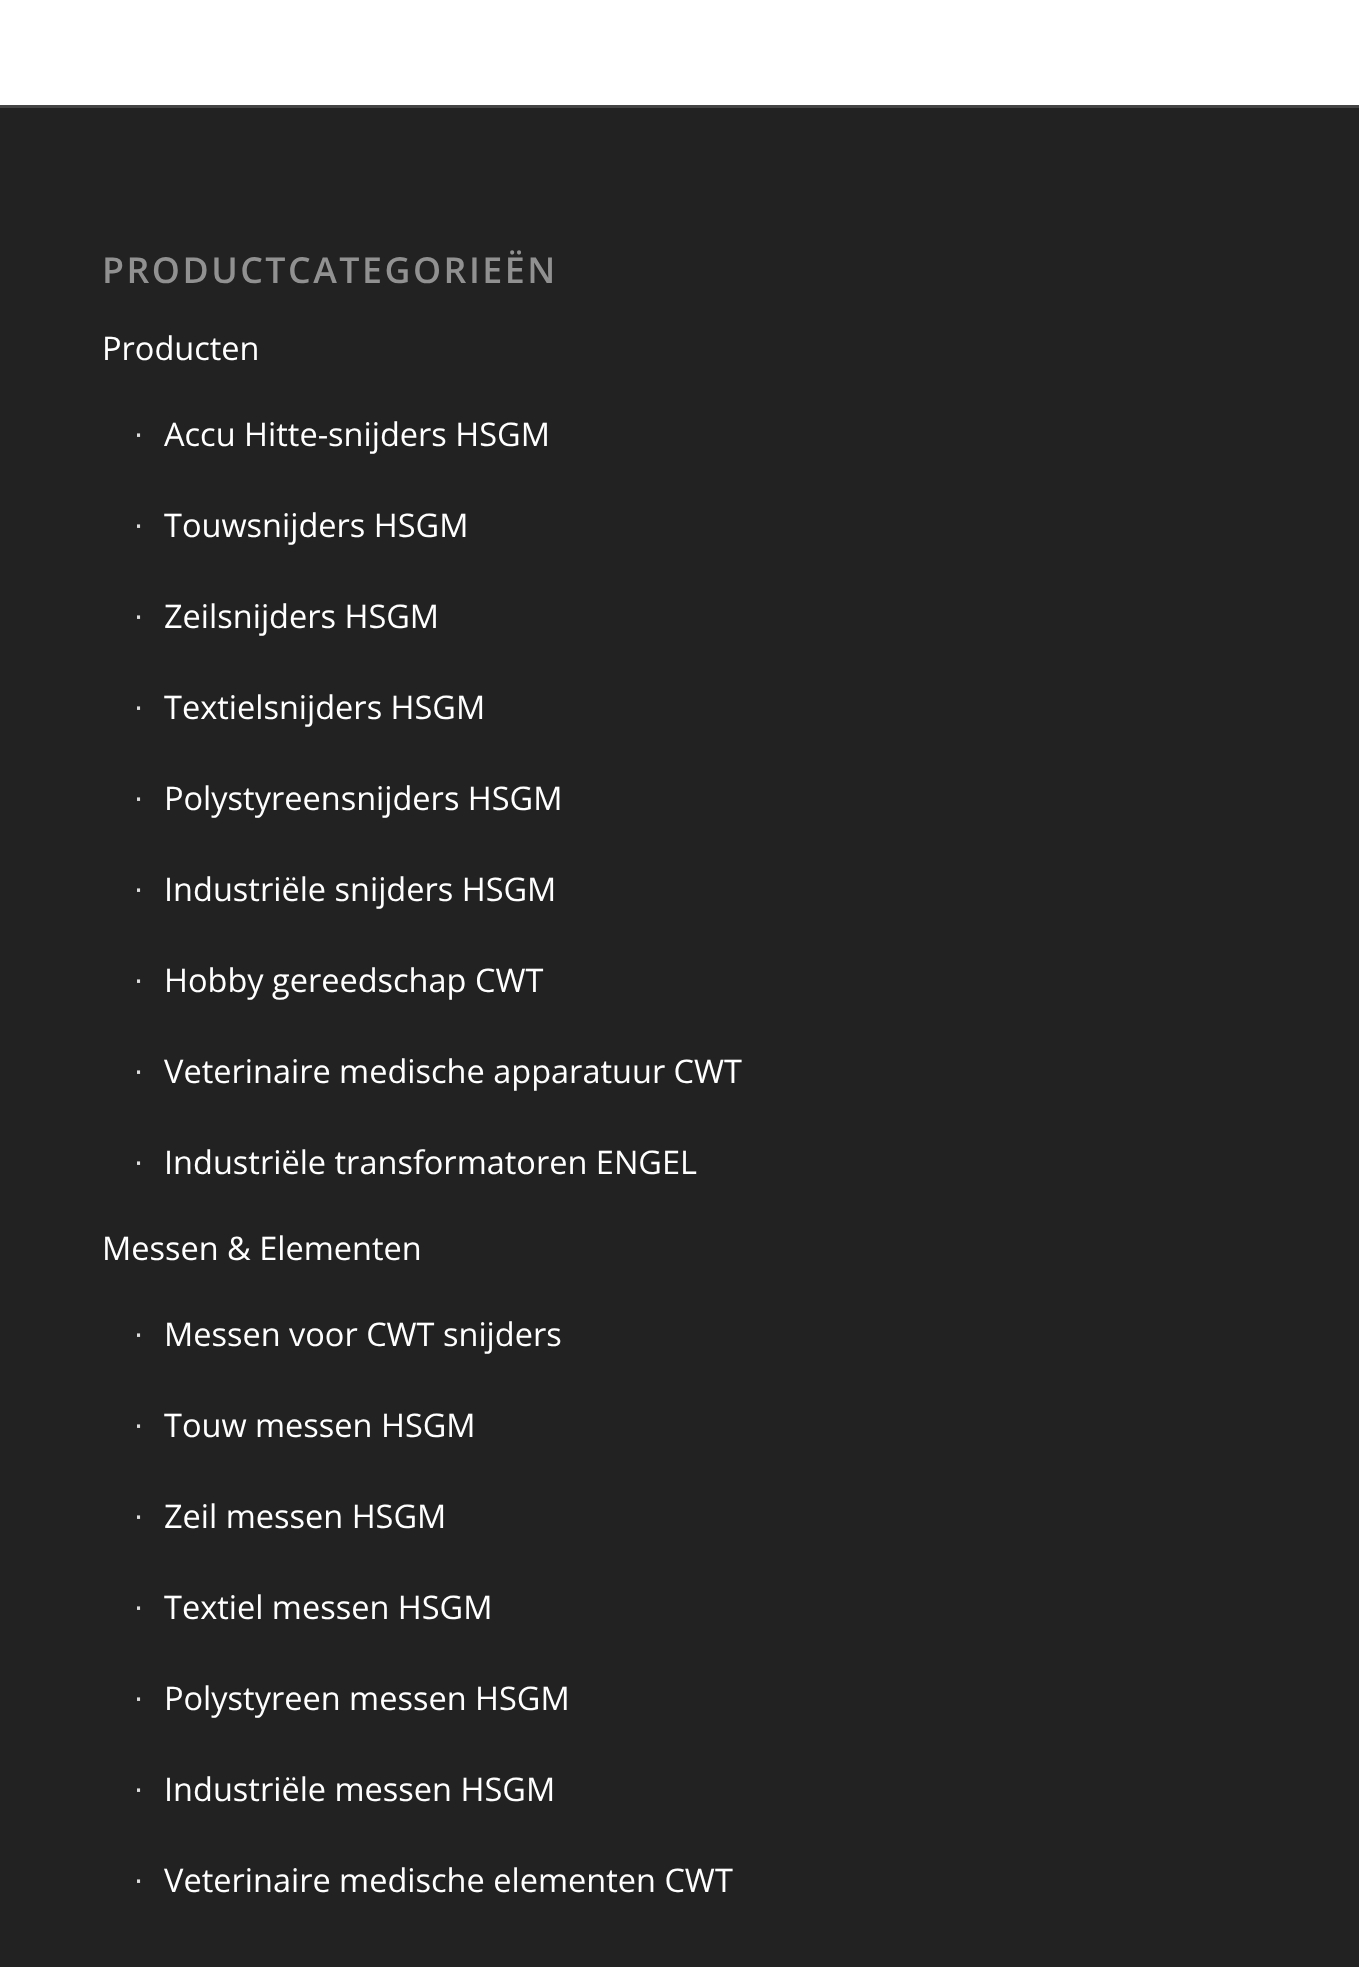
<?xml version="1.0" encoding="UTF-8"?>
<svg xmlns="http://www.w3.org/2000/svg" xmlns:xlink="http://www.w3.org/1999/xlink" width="1359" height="1967">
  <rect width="100%" height="100%" fill="#ffffff" />
  <rect y="108" width="1359" height="1859" fill="#222222" />
  <rect y="105" width="1359" height="3" fill="#444444" />
  <text x="102" y="283" style="font-family: Open Sans; font-size: 35.75px; font-weight: 600; letter-spacing: 2.5px; fill: #919191">PRODUCTCATEGORIEËN</text>
  <text x="102" y="360" style="font-family: Open Sans; font-size: 32.5px; fill: #ffffff">Producten</text>
  <text x="134" y="444" style="font-family: Liberation Sans; font-size: 32.5px; fill: #dddddd">∙</text>
  <text x="164" y="446" style="font-family: Open Sans; font-size: 32.5px; fill: #ffffff">Accu Hitte-snijders HSGM</text>
  <text x="134" y="535" style="font-family: Liberation Sans; font-size: 32.5px; fill: #dddddd">∙</text>
  <text x="164" y="537" style="font-family: Open Sans; font-size: 32.5px; fill: #ffffff">Touwsnijders HSGM</text>
  <text x="134" y="626" style="font-family: Liberation Sans; font-size: 32.5px; fill: #dddddd">∙</text>
  <text x="164" y="628" style="font-family: Open Sans; font-size: 32.5px; fill: #ffffff">Zeilsnijders HSGM</text>
  <text x="134" y="717" style="font-family: Liberation Sans; font-size: 32.5px; fill: #dddddd">∙</text>
  <text x="164" y="719" style="font-family: Open Sans; font-size: 32.5px; fill: #ffffff">Textielsnijders HSGM</text>
  <text x="134" y="808" style="font-family: Liberation Sans; font-size: 32.5px; fill: #dddddd">∙</text>
  <text x="164" y="810" style="font-family: Open Sans; font-size: 32.5px; fill: #ffffff">Polystyreensnijders HSGM</text>
  <text x="134" y="899" style="font-family: Liberation Sans; font-size: 32.5px; fill: #dddddd">∙</text>
  <text x="164" y="901" style="font-family: Open Sans; font-size: 32.5px; fill: #ffffff">Industriële snijders HSGM</text>
  <text x="134" y="990" style="font-family: Liberation Sans; font-size: 32.5px; fill: #dddddd">∙</text>
  <text x="164" y="992" style="font-family: Open Sans; font-size: 32.5px; fill: #ffffff">Hobby gereedschap CWT</text>
  <text x="134" y="1081" style="font-family: Liberation Sans; font-size: 32.5px; fill: #dddddd">∙</text>
  <text x="164" y="1083" style="font-family: Open Sans; font-size: 32.5px; fill: #ffffff">Veterinaire medische apparatuur CWT</text>
  <text x="134" y="1172" style="font-family: Liberation Sans; font-size: 32.5px; fill: #dddddd">∙</text>
  <text x="164" y="1174" style="font-family: Open Sans; font-size: 32.5px; fill: #ffffff">Industriële transformatoren ENGEL</text>
  <text x="102" y="1260" style="font-family: Open Sans; font-size: 32.5px; fill: #ffffff">Messen &amp; Elementen</text>
  <text x="134" y="1344" style="font-family: Liberation Sans; font-size: 32.5px; fill: #dddddd">∙</text>
  <text x="164" y="1346" style="font-family: Open Sans; font-size: 32.5px; fill: #ffffff">Messen voor CWT snijders</text>
  <text x="134" y="1435" style="font-family: Liberation Sans; font-size: 32.5px; fill: #dddddd">∙</text>
  <text x="164" y="1437" style="font-family: Open Sans; font-size: 32.5px; fill: #ffffff">Touw messen HSGM</text>
  <text x="134" y="1526" style="font-family: Liberation Sans; font-size: 32.5px; fill: #dddddd">∙</text>
  <text x="164" y="1528" style="font-family: Open Sans; font-size: 32.5px; fill: #ffffff">Zeil messen HSGM</text>
  <text x="134" y="1617" style="font-family: Liberation Sans; font-size: 32.5px; fill: #dddddd">∙</text>
  <text x="164" y="1619" style="font-family: Open Sans; font-size: 32.5px; fill: #ffffff">Textiel messen HSGM</text>
  <text x="134" y="1708" style="font-family: Liberation Sans; font-size: 32.5px; fill: #dddddd">∙</text>
  <text x="164" y="1710" style="font-family: Open Sans; font-size: 32.5px; fill: #ffffff">Polystyreen messen HSGM</text>
  <text x="134" y="1799" style="font-family: Liberation Sans; font-size: 32.5px; fill: #dddddd">∙</text>
  <text x="164" y="1801" style="font-family: Open Sans; font-size: 32.5px; fill: #ffffff">Industriële messen HSGM</text>
  <text x="134" y="1890" style="font-family: Liberation Sans; font-size: 32.5px; fill: #dddddd">∙</text>
  <text x="164" y="1892" style="font-family: Open Sans; font-size: 32.5px; fill: #ffffff">Veterinaire medische elementen CWT</text>
</svg>
